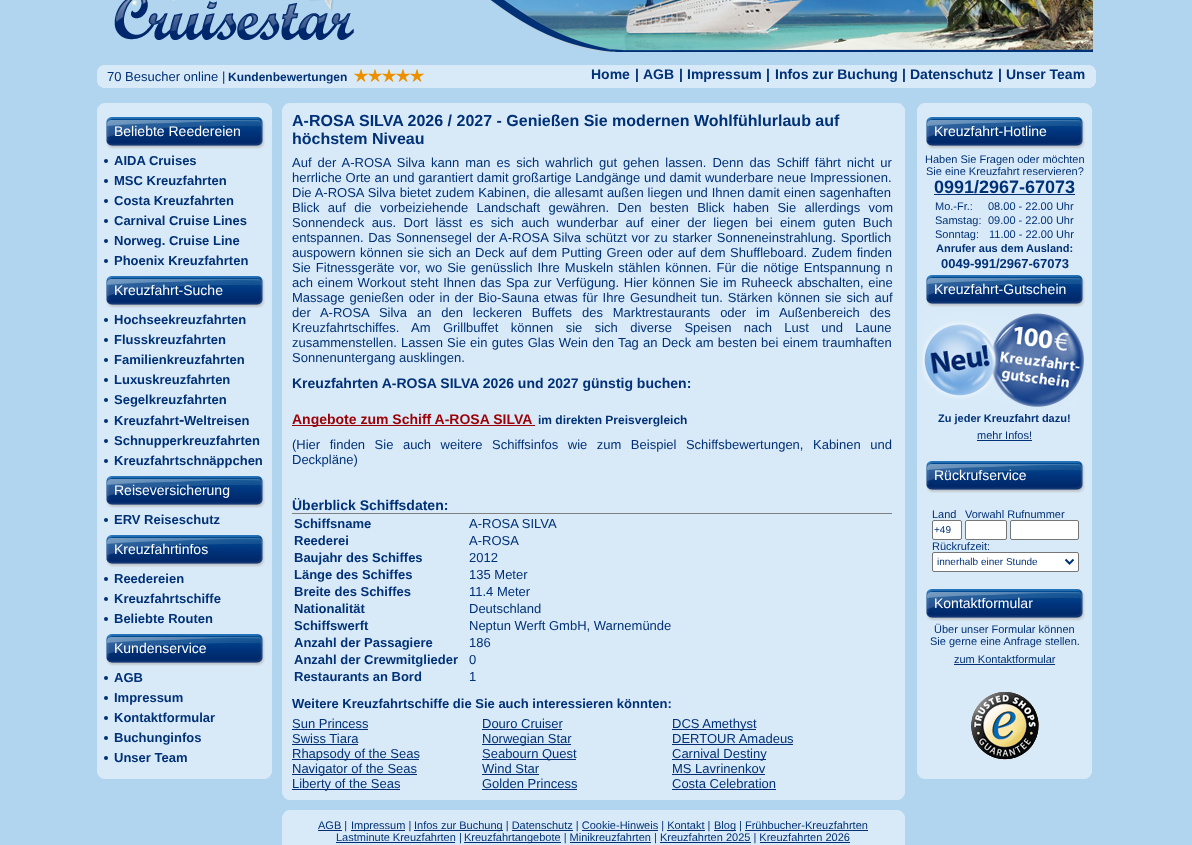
<?xml version="1.0" encoding="UTF-8"?>
<svg xmlns="http://www.w3.org/2000/svg" xmlns:xlink="http://www.w3.org/1999/xlink" width="1192" height="845">
  <rect width="100%" height="100%" fill="#b1d5ef" />
  <image x="114" y="0" width="979" height="52" xlink:href="image1.png" />
  <rect x="102" y="65" width="989" height="23" fill="#d8eaf8" />
  <image x="97" y="65" width="5" height="23" xlink:href="image2.png" />
  <image x="354" y="69" width="14" height="13" xlink:href="image3.png" />
  <image x="368" y="69" width="14" height="13" xlink:href="image3.png" />
  <image x="382" y="69" width="14" height="13" xlink:href="image3.png" />
  <image x="396" y="69" width="14" height="13" xlink:href="image3.png" />
  <image x="410" y="69" width="14" height="13" xlink:href="image3.png" />
  <image x="1091" y="65" width="5" height="23" xlink:href="image4.png" />
  <rect x="97" y="103" width="175" height="9" fill="#d8eaf8" />
  <image x="97" y="103" width="7" height="6" xlink:href="image5.png" />
  <image x="265" y="103" width="7" height="6" xlink:href="image6.png" />
  <rect x="97" y="112" width="175" height="667" fill="#d8eaf8" />
  <image x="97" y="773" width="7" height="6" xlink:href="image7.png" />
  <image x="265" y="773" width="7" height="6" xlink:href="image8.png" />
  <image x="106" y="117" width="159" height="32" xlink:href="image9.png" />
  <circle cx="106" cy="161" r="2" fill="#003176" />
  <circle cx="106" cy="181" r="2" fill="#003176" />
  <circle cx="106" cy="201" r="2" fill="#003176" />
  <circle cx="106" cy="221" r="2" fill="#003176" />
  <circle cx="106" cy="241" r="2" fill="#003176" />
  <circle cx="106" cy="261" r="2" fill="#003176" />
  <image x="106" y="276" width="159" height="32" xlink:href="image9.png" />
  <circle cx="106" cy="320" r="2" fill="#003176" />
  <circle cx="106" cy="340" r="2" fill="#003176" />
  <circle cx="106" cy="360" r="2" fill="#003176" />
  <circle cx="106" cy="380" r="2" fill="#003176" />
  <circle cx="106" cy="400" r="2" fill="#003176" />
  <circle cx="106" cy="421" r="2" fill="#003176" />
  <circle cx="106" cy="441" r="2" fill="#003176" />
  <circle cx="106" cy="461" r="2" fill="#003176" />
  <image x="106" y="476" width="159" height="32" xlink:href="image9.png" />
  <circle cx="106" cy="520" r="2" fill="#003176" />
  <image x="106" y="535" width="159" height="32" xlink:href="image9.png" />
  <circle cx="106" cy="579" r="2" fill="#003176" />
  <circle cx="106" cy="599" r="2" fill="#003176" />
  <circle cx="106" cy="619" r="2" fill="#003176" />
  <image x="106" y="634" width="159" height="32" xlink:href="image9.png" />
  <circle cx="106" cy="678" r="2" fill="#003176" />
  <circle cx="106" cy="698" r="2" fill="#003176" />
  <circle cx="106" cy="718" r="2" fill="#003176" />
  <circle cx="106" cy="738" r="2" fill="#003176" />
  <circle cx="106" cy="758" r="2" fill="#003176" />
  <rect x="282" y="103" width="623" height="9" fill="#d8eaf8" />
  <image x="282" y="103" width="7" height="6" xlink:href="image5.png" />
  <image x="898" y="103" width="7" height="6" xlink:href="image6.png" />
  <rect x="282" y="112" width="623" height="688" fill="#d8eaf8" />
  <image x="282" y="794" width="7" height="6" xlink:href="image7.png" />
  <image x="898" y="794" width="7" height="6" xlink:href="image8.png" />
  <rect x="292" y="425" width="243" height="1" fill="#9c0007" />
  <rect x="292" y="513" width="600" height="1" fill="#808080" />
  <rect x="292" y="729" width="76" height="1" fill="#002e74" />
  <rect x="482" y="729" width="80" height="1" fill="#002e74" />
  <rect x="672" y="729" width="84" height="1" fill="#002e74" />
  <rect x="292" y="744" width="66" height="1" fill="#002e74" />
  <rect x="482" y="744" width="89" height="1" fill="#002e74" />
  <rect x="672" y="744" width="121" height="1" fill="#002e74" />
  <rect x="292" y="759" width="127" height="1" fill="#002e74" />
  <rect x="482" y="759" width="94" height="1" fill="#002e74" />
  <rect x="672" y="759" width="94" height="1" fill="#002e74" />
  <rect x="292" y="774" width="125" height="1" fill="#002e74" />
  <rect x="482" y="774" width="57" height="1" fill="#002e74" />
  <rect x="672" y="774" width="93" height="1" fill="#002e74" />
  <rect x="292" y="789" width="108" height="1" fill="#002e74" />
  <rect x="482" y="789" width="95" height="1" fill="#002e74" />
  <rect x="672" y="789" width="104" height="1" fill="#002e74" />
  <rect x="282" y="810" width="623" height="35" fill="#d8eaf8" />
  <image x="282" y="810" width="7" height="6" xlink:href="image5.png" />
  <image x="898" y="810" width="7" height="6" xlink:href="image6.png" />
  <rect x="318" y="830" width="24" height="1" fill="#002e74" />
  <rect x="351" y="830" width="54" height="1" fill="#002e74" />
  <rect x="414" y="830" width="89" height="1" fill="#002e74" />
  <rect x="714" y="830" width="22" height="1" fill="#002e74" />
  <rect x="336" y="842" width="119" height="1" fill="#002e74" />
  <rect x="464" y="842" width="97" height="1" fill="#002e74" />
  <rect x="917" y="103" width="175" height="676" fill="#d8eaf8" />
  <image x="917" y="103" width="7" height="6" xlink:href="image5.png" />
  <image x="1085" y="103" width="7" height="6" xlink:href="image6.png" />
  <image x="926" y="117" width="159" height="32" xlink:href="image9.png" />
  <rect x="934" y="194" width="141" height="1" fill="#003176" />
  <image x="926" y="275" width="159" height="32" xlink:href="image9.png" />
  <image x="922" y="313" width="162" height="94" xlink:href="image10.png" />
  <rect x="977" y="440" width="55" height="1" fill="#003176" />
  <image x="926" y="461" width="159" height="32" xlink:href="image9.png" />
  <rect x="932.5" y="520.5" width="29" height="19" rx="1.5" fill="#ffffff" stroke="#767676" />
  <rect x="965.5" y="520.5" width="41" height="19" rx="1.5" fill="#ffffff" stroke="#767676" />
  <rect x="1010.5" y="520.5" width="68" height="19" rx="1.5" fill="#ffffff" stroke="#767676" />
  <rect x="932.5" y="552.5" width="146" height="19" rx="1.5" fill="#ffffff" stroke="#767676" />
  <path d="M 1065.5 559.5 l 4 4 l 4 -4" fill="none" stroke="#003176" stroke-width="2" />
  <image x="926" y="589" width="159" height="32" xlink:href="image9.png" />
  <rect x="954" y="664" width="101" height="1" fill="#003176" />
  <image x="971" y="692" width="68" height="68" xlink:href="image11.png" />
  <image x="917" y="773" width="7" height="6" xlink:href="image7.png" />
  <image x="1085" y="773" width="7" height="6" xlink:href="image8.png" />
  <text x="107" y="81" style="font-family: Liberation Sans; font-size: 13px; fill: #003176">70 Besucher online |</text>
  <text x="228" y="81" style="font-family: Liberation Sans; font-size: 12px; font-weight: bold; fill: #003176">Kundenbewertungen</text>
  <text x="591" y="79" style="font-family: Liberation Sans; font-size: 14px; font-weight: bold; fill: #003176">Home</text>
  <text x="635" y="79" style="font-family: Liberation Sans; font-size: 14px; font-weight: bold; fill: #003176">|</text>
  <text x="643" y="79" style="font-family: Liberation Sans; font-size: 14px; font-weight: bold; fill: #003176">AGB</text>
  <text x="679" y="79" style="font-family: Liberation Sans; font-size: 14px; font-weight: bold; fill: #003176">|</text>
  <text x="687" y="79" style="font-family: Liberation Sans; font-size: 14px; font-weight: bold; fill: #003176">Impressum</text>
  <text x="766" y="79" style="font-family: Liberation Sans; font-size: 14px; font-weight: bold; fill: #003176">|</text>
  <text x="775" y="79" style="font-family: Liberation Sans; font-size: 14px; font-weight: bold; fill: #003176">Infos zur Buchung</text>
  <text x="902" y="79" style="font-family: Liberation Sans; font-size: 14px; font-weight: bold; fill: #003176">|</text>
  <text x="910" y="79" style="font-family: Liberation Sans; font-size: 14px; font-weight: bold; fill: #003176">Datenschutz</text>
  <text x="998" y="79" style="font-family: Liberation Sans; font-size: 14px; font-weight: bold; fill: #003176">|</text>
  <text x="1006" y="79" style="font-family: Liberation Sans; font-size: 14px; font-weight: bold; fill: #003176">Unser Team</text>
  <text x="114" y="136" style="font-family: Liberation Sans; font-size: 14px; fill: #ffffff">Beliebte Reedereien</text>
  <text x="114" y="165" style="font-family: Liberation Sans; font-size: 13px; font-weight: bold; fill: #003176">AIDA Cruises</text>
  <text x="114" y="185" style="font-family: Liberation Sans; font-size: 13px; font-weight: bold; fill: #003176">MSC Kreuzfahrten</text>
  <text x="114" y="205" style="font-family: Liberation Sans; font-size: 13px; font-weight: bold; fill: #003176">Costa Kreuzfahrten</text>
  <text x="114" y="225" style="font-family: Liberation Sans; font-size: 13px; font-weight: bold; fill: #003176">Carnival Cruise Lines</text>
  <text x="114" y="245" style="font-family: Liberation Sans; font-size: 13px; font-weight: bold; fill: #003176">Norweg. Cruise Line</text>
  <text x="114" y="265" style="font-family: Liberation Sans; font-size: 13px; font-weight: bold; fill: #003176">Phoenix Kreuzfahrten</text>
  <text x="114" y="295" style="font-family: Liberation Sans; font-size: 14px; fill: #ffffff">Kreuzfahrt-Suche</text>
  <text x="114" y="324" style="font-family: Liberation Sans; font-size: 13px; font-weight: bold; fill: #003176">Hochseekreuzfahrten</text>
  <text x="114" y="344" style="font-family: Liberation Sans; font-size: 13px; font-weight: bold; fill: #003176">Flusskreuzfahrten</text>
  <text x="114" y="364" style="font-family: Liberation Sans; font-size: 13px; font-weight: bold; fill: #003176">Familienkreuzfahrten</text>
  <text x="114" y="384" style="font-family: Liberation Sans; font-size: 13px; font-weight: bold; fill: #003176">Luxuskreuzfahrten</text>
  <text x="114" y="404" style="font-family: Liberation Sans; font-size: 13px; font-weight: bold; fill: #003176">Segelkreuzfahrten</text>
  <text x="114" y="425" style="font-family: Liberation Sans; font-size: 13px; font-weight: bold; fill: #003176">Kreuzfahrt</text>
  <text x="179" y="425" style="font-family: Liberation Sans; font-size: 16px; font-weight: bold; fill: #003176">-</text>
  <text x="184" y="425" style="font-family: Liberation Sans; font-size: 13px; font-weight: bold; fill: #003176">Weltreisen</text>
  <text x="114" y="445" style="font-family: Liberation Sans; font-size: 13px; font-weight: bold; fill: #003176">Schnupperkreuzfahrten</text>
  <text x="114" y="465" style="font-family: Liberation Sans; font-size: 13px; font-weight: bold; fill: #003176">Kreuzfahrtschnäppchen</text>
  <text x="114" y="495" style="font-family: Liberation Sans; font-size: 14px; fill: #ffffff">Reiseversicherung</text>
  <text x="114" y="524" style="font-family: Liberation Sans; font-size: 13px; font-weight: bold; fill: #003176">ERV Reiseschutz</text>
  <text x="114" y="554" style="font-family: Liberation Sans; font-size: 14px; fill: #ffffff">Kreuzfahrtinfos</text>
  <text x="114" y="583" style="font-family: Liberation Sans; font-size: 13px; font-weight: bold; fill: #003176">Reedereien</text>
  <text x="114" y="603" style="font-family: Liberation Sans; font-size: 13px; font-weight: bold; fill: #003176">Kreuzfahrtschiffe</text>
  <text x="114" y="623" style="font-family: Liberation Sans; font-size: 13px; font-weight: bold; fill: #003176">Beliebte Routen</text>
  <text x="114" y="653" style="font-family: Liberation Sans; font-size: 14px; fill: #ffffff">Kundenservice</text>
  <text x="114" y="682" style="font-family: Liberation Sans; font-size: 13px; font-weight: bold; fill: #003176">AGB</text>
  <text x="114" y="702" style="font-family: Liberation Sans; font-size: 13px; font-weight: bold; fill: #003176">Impressum</text>
  <text x="114" y="722" style="font-family: Liberation Sans; font-size: 13px; font-weight: bold; fill: #003176">Kontaktformular</text>
  <text x="114" y="742" style="font-family: Liberation Sans; font-size: 13px; font-weight: bold; fill: #003176">Buchunginfos</text>
  <text x="114" y="762" style="font-family: Liberation Sans; font-size: 13px; font-weight: bold; fill: #003176">Unser Team</text>
  <text x="292" y="126" style="font-family: Liberation Sans; font-size: 16px; font-weight: bold; fill: #003176">A-ROSA SILVA 2026 / 2027 - Genießen Sie modernen Wohlfühlurlaub auf</text>
  <text x="292" y="144" style="font-family: Liberation Sans; font-size: 16px; font-weight: bold; fill: #003176">höchstem Niveau</text>
  <text x="292" y="167" word-spacing="2.4" style="font-family: Liberation Sans; font-size: 13px; fill: #003176">Auf der A-ROSA Silva kann man es sich wahrlich gut gehen lassen. Denn das Schiff fährt nicht ur</text>
  <text x="292" y="182" word-spacing="0.1" style="font-family: Liberation Sans; font-size: 13px; fill: #003176">herrliche Orte an und garantiert damit großartige Landgänge und damit wunderbare neue Impressionen.</text>
  <text x="292" y="197" word-spacing="0.25" style="font-family: Liberation Sans; font-size: 13px; fill: #003176">Die A-ROSA Silva bietet zudem Kabinen, die allesamt außen liegen und Ihnen damit einen sagenhaften</text>
  <text x="292" y="212" word-spacing="4.75" style="font-family: Liberation Sans; font-size: 13px; fill: #003176">Blick auf die vorbeiziehende Landschaft gewähren. Den besten Blick haben Sie allerdings vom</text>
  <text x="292" y="227" word-spacing="3.75" style="font-family: Liberation Sans; font-size: 13px; fill: #003176">Sonnendeck aus. Dort lässt es sich auch wunderbar auf einer der liegen bei einem guten Buch</text>
  <text x="292" y="242" word-spacing="1" style="font-family: Liberation Sans; font-size: 13px; fill: #003176">entspannen. Das Sonnensegel der A-ROSA Silva schützt vor zu starker Sonneneinstrahlung. Sportlich</text>
  <text x="292" y="257" word-spacing="0.9" style="font-family: Liberation Sans; font-size: 13px; fill: #003176">auspowern können sie sich an Deck auf dem Putting Green oder auf dem Shuffleboard. Zudem finden</text>
  <text x="292" y="272" word-spacing="1.4" style="font-family: Liberation Sans; font-size: 13px; fill: #003176">Sie Fitnessgeräte vor, wo Sie genüsslich Ihre Muskeln stählen können. Für die nötige Entspannung n</text>
  <text x="292" y="287" word-spacing="1" style="font-family: Liberation Sans; font-size: 13px; fill: #003176">ach einem Workout steht Ihnen das Spa zur Verfügung. Hier können Sie im Ruheeck abschalten, eine</text>
  <text x="292" y="302" word-spacing="1.25" style="font-family: Liberation Sans; font-size: 13px; fill: #003176">Massage genießen oder in der Bio-Sauna etwas für Ihre Gesundheit tun. Stärken können sie sich auf</text>
  <text x="292" y="317" word-spacing="6.25" style="font-family: Liberation Sans; font-size: 13px; fill: #003176">der A-ROSA Silva an den leckeren Buffets des Marktrestaurants oder im Außenbereich des</text>
  <text x="292" y="332" word-spacing="8.75" style="font-family: Liberation Sans; font-size: 13px; fill: #003176">Kreuzfahrtschiffes. Am Grillbuffet können sie sich diverse Speisen nach Lust und Laune</text>
  <text x="292" y="347" word-spacing="0.6" style="font-family: Liberation Sans; font-size: 13px; fill: #003176">zusammenstellen. Lassen Sie ein gutes Glas Wein den Tag an Deck am besten bei einem traumhaften</text>
  <text x="292" y="362" style="font-family: Liberation Sans; font-size: 13px; fill: #003176">Sonnenuntergang ausklingen.</text>
  <text x="292" y="388" style="font-family: Liberation Sans; font-size: 14px; font-weight: bold; fill: #003176">Kreuzfahrten A-ROSA SILVA 2026 und 2027 günstig buchen:</text>
  <text x="292" y="424" style="font-family: Liberation Sans; font-size: 14px; font-weight: bold; fill: #9c0007">Angebote zum Schiff A-ROSA SILVA</text>
  <text x="538" y="424" style="font-family: Liberation Sans; font-size: 12px; font-weight: bold; fill: #003176">im direkten Preisvergleich</text>
  <text x="292" y="449" word-spacing="5.9" style="font-family: Liberation Sans; font-size: 13px; fill: #003176">(Hier finden Sie auch weitere Schiffsinfos wie zum Beispiel Schiffsbewertungen, Kabinen und</text>
  <text x="292" y="464" style="font-family: Liberation Sans; font-size: 13px; fill: #003176">Deckpläne)</text>
  <text x="292" y="510" style="font-family: Liberation Sans; font-size: 14px; font-weight: bold; fill: #003176">Überblick Schiffsdaten:</text>
  <text x="294" y="528" style="font-family: Liberation Sans; font-size: 13px; font-weight: bold; fill: #003176">Schiffsname</text>
  <text x="469" y="528" style="font-family: Liberation Sans; font-size: 13px; fill: #003176">A-ROSA SILVA</text>
  <text x="294" y="545" style="font-family: Liberation Sans; font-size: 13px; font-weight: bold; fill: #003176">Reederei</text>
  <text x="469" y="545" style="font-family: Liberation Sans; font-size: 13px; fill: #003176">A-ROSA</text>
  <text x="294" y="562" style="font-family: Liberation Sans; font-size: 13px; font-weight: bold; fill: #003176">Baujahr des Schiffes</text>
  <text x="469" y="562" style="font-family: Liberation Sans; font-size: 13px; fill: #003176">2012</text>
  <text x="294" y="579" style="font-family: Liberation Sans; font-size: 13px; font-weight: bold; fill: #003176">Länge des Schiffes</text>
  <text x="469" y="579" style="font-family: Liberation Sans; font-size: 13px; fill: #003176">135 Meter</text>
  <text x="294" y="596" style="font-family: Liberation Sans; font-size: 13px; font-weight: bold; fill: #003176">Breite des Schiffes</text>
  <text x="469" y="596" style="font-family: Liberation Sans; font-size: 13px; fill: #003176">11.4 Meter</text>
  <text x="294" y="613" style="font-family: Liberation Sans; font-size: 13px; font-weight: bold; fill: #003176">Nationalität</text>
  <text x="469" y="613" style="font-family: Liberation Sans; font-size: 13px; fill: #003176">Deutschland</text>
  <text x="294" y="630" style="font-family: Liberation Sans; font-size: 13px; font-weight: bold; fill: #003176">Schiffswerft</text>
  <text x="469" y="630" style="font-family: Liberation Sans; font-size: 13px; fill: #003176">Neptun Werft GmbH, Warnemünde</text>
  <text x="294" y="647" style="font-family: Liberation Sans; font-size: 13px; font-weight: bold; fill: #003176">Anzahl der Passagiere</text>
  <text x="469" y="647" style="font-family: Liberation Sans; font-size: 13px; fill: #003176">186</text>
  <text x="294" y="664" style="font-family: Liberation Sans; font-size: 13px; font-weight: bold; fill: #003176">Anzahl der Crewmitglieder</text>
  <text x="469" y="664" style="font-family: Liberation Sans; font-size: 13px; fill: #003176">0</text>
  <text x="294" y="681" style="font-family: Liberation Sans; font-size: 13px; font-weight: bold; fill: #003176">Restaurants an Bord</text>
  <text x="469" y="681" style="font-family: Liberation Sans; font-size: 13px; fill: #003176">1</text>
  <text x="292" y="708" style="font-family: Liberation Sans; font-size: 13px; font-weight: bold; fill: #003176">Weitere Kreuzfahrtschiffe die Sie auch interessieren könnten:</text>
  <text x="292" y="728" style="font-family: Liberation Sans; font-size: 13px; fill: #003176">Sun Princess</text>
  <text x="482" y="728" style="font-family: Liberation Sans; font-size: 13px; fill: #003176">Douro Cruiser</text>
  <text x="672" y="728" style="font-family: Liberation Sans; font-size: 13px; fill: #003176">DCS Amethyst</text>
  <text x="292" y="743" style="font-family: Liberation Sans; font-size: 13px; fill: #003176">Swiss Tiara</text>
  <text x="482" y="743" style="font-family: Liberation Sans; font-size: 13px; fill: #003176">Norwegian Star</text>
  <text x="672" y="743" style="font-family: Liberation Sans; font-size: 13px; fill: #003176">DERTOUR Amadeus</text>
  <text x="292" y="758" style="font-family: Liberation Sans; font-size: 13px; fill: #003176">Rhapsody of the Seas</text>
  <text x="482" y="758" style="font-family: Liberation Sans; font-size: 13px; fill: #003176">Seabourn Quest</text>
  <text x="672" y="758" style="font-family: Liberation Sans; font-size: 13px; fill: #003176">Carnival Destiny</text>
  <text x="292" y="773" style="font-family: Liberation Sans; font-size: 13px; fill: #003176">Navigator of the Seas</text>
  <text x="482" y="773" style="font-family: Liberation Sans; font-size: 13px; fill: #003176">Wind Star</text>
  <text x="672" y="773" style="font-family: Liberation Sans; font-size: 13px; fill: #003176">MS Lavrinenkov</text>
  <text x="292" y="788" style="font-family: Liberation Sans; font-size: 13px; fill: #003176">Liberty of the Seas</text>
  <text x="482" y="788" style="font-family: Liberation Sans; font-size: 13px; fill: #003176">Golden Princess</text>
  <text x="672" y="788" style="font-family: Liberation Sans; font-size: 13px; fill: #003176">Costa Celebration</text>
  <text x="318" y="829" style="font-family: Liberation Sans; font-size: 11px; fill: #003176">AGB |</text>
  <text x="351" y="829" style="font-family: Liberation Sans; font-size: 11px; fill: #003176">Impressum |</text>
  <text x="414" y="829" style="font-family: Liberation Sans; font-size: 11px; fill: #003176">Infos zur Buchung | Datenschutz | Cookie-Hinweis | Kontakt |</text>
  <text x="714" y="829" style="font-family: Liberation Sans; font-size: 11px; fill: #003176">Blog | Frühbucher-Kreuzfahrten</text>
  <rect x="512" y="830" width="61" height="1" fill="#002e74" />
  <rect x="582" y="830" width="76" height="1" fill="#002e74" />
  <rect x="667" y="830" width="38" height="1" fill="#002e74" />
  <rect x="745" y="830" width="123" height="1" fill="#002e74" />
  <text x="336" y="841" style="font-family: Liberation Sans; font-size: 11px; fill: #003176">Lastminute Kreuzfahrten |</text>
  <text x="464" y="841" style="font-family: Liberation Sans; font-size: 11px; fill: #003176">Kreuzfahrtangebote | Minikreuzfahrten | Kreuzfahrten 2025 | Kreuzfahrten 2026</text>
  <rect x="570" y="842" width="81" height="1" fill="#002e74" />
  <rect x="660" y="842" width="91" height="1" fill="#002e74" />
  <rect x="760" y="842" width="90" height="1" fill="#002e74" />
  <text x="934" y="136" style="font-family: Liberation Sans; font-size: 14px; fill: #ffffff">Kreuzfahrt-Hotline</text>
  <text x="925" y="163" style="font-family: Liberation Sans; font-size: 11px; fill: #003176">Haben Sie Fragen oder möchten</text>
  <text x="926" y="175" style="font-family: Liberation Sans; font-size: 11px; fill: #003176">Sie eine Kreuzfahrt reservieren?</text>
  <text x="934" y="193" style="font-family: Liberation Sans; font-size: 18px; font-weight: bold; fill: #003176">0991/2967-67073</text>
  <text x="935" y="210" style="font-family: Liberation Sans; font-size: 11px; fill: #003176">Mo.-Fr.:</text>
  <text x="988" y="210" style="font-family: Liberation Sans; font-size: 11px; fill: #003176">08.00 - 22.00 Uhr</text>
  <text x="935" y="224" style="font-family: Liberation Sans; font-size: 11px; fill: #003176">Samstag:</text>
  <text x="988" y="224" style="font-family: Liberation Sans; font-size: 11px; fill: #003176">09.00 - 22.00 Uhr</text>
  <text x="935" y="238" style="font-family: Liberation Sans; font-size: 11px; fill: #003176">Sonntag:</text>
  <text x="989" y="238" style="font-family: Liberation Sans; font-size: 11px; fill: #003176">11.00 - 22.00 Uhr</text>
  <text x="936" y="252" style="font-family: Liberation Sans; font-size: 11px; font-weight: bold; fill: #003176">Anrufer aus dem Ausland:</text>
  <text x="941" y="268" style="font-family: Liberation Sans; font-size: 13px; font-weight: bold; fill: #003176">0049-991/2967-67073</text>
  <text x="934" y="294" style="font-family: Liberation Sans; font-size: 14px; fill: #ffffff">Kreuzfahrt-Gutschein</text>
  <text x="938" y="422" style="font-family: Liberation Sans; font-size: 11px; font-weight: bold; fill: #003176">Zu jeder Kreuzfahrt dazu!</text>
  <text x="977" y="439" style="font-family: Liberation Sans; font-size: 11px; fill: #003176">mehr Infos!</text>
  <text x="934" y="480" style="font-family: Liberation Sans; font-size: 14px; fill: #ffffff">Rückrufservice</text>
  <text x="932" y="518" style="font-family: Liberation Sans; font-size: 11px; fill: #003176">Land</text>
  <text x="965" y="518" style="font-family: Liberation Sans; font-size: 11px; fill: #003176">Vorwahl Rufnummer</text>
  <text x="934" y="533" style="font-family: Liberation Sans; font-size: 10px; fill: #003176">+49</text>
  <text x="932" y="550" style="font-family: Liberation Sans; font-size: 11px; fill: #003176">Rückrufzeit:</text>
  <text x="937" y="565" style="font-family: Liberation Sans; font-size: 10px; fill: #003176">innerhalb einer Stunde</text>
  <text x="934" y="608" style="font-family: Liberation Sans; font-size: 14px; fill: #ffffff">Kontaktformular</text>
  <text x="934" y="633" style="font-family: Liberation Sans; font-size: 11px; fill: #003176">Über unser Formular können</text>
  <text x="930" y="645" style="font-family: Liberation Sans; font-size: 11px; fill: #003176">Sie gerne eine Anfrage stellen.</text>
  <text x="954" y="663" style="font-family: Liberation Sans; font-size: 11px; fill: #003176">zum Kontaktformular</text>
</svg>
